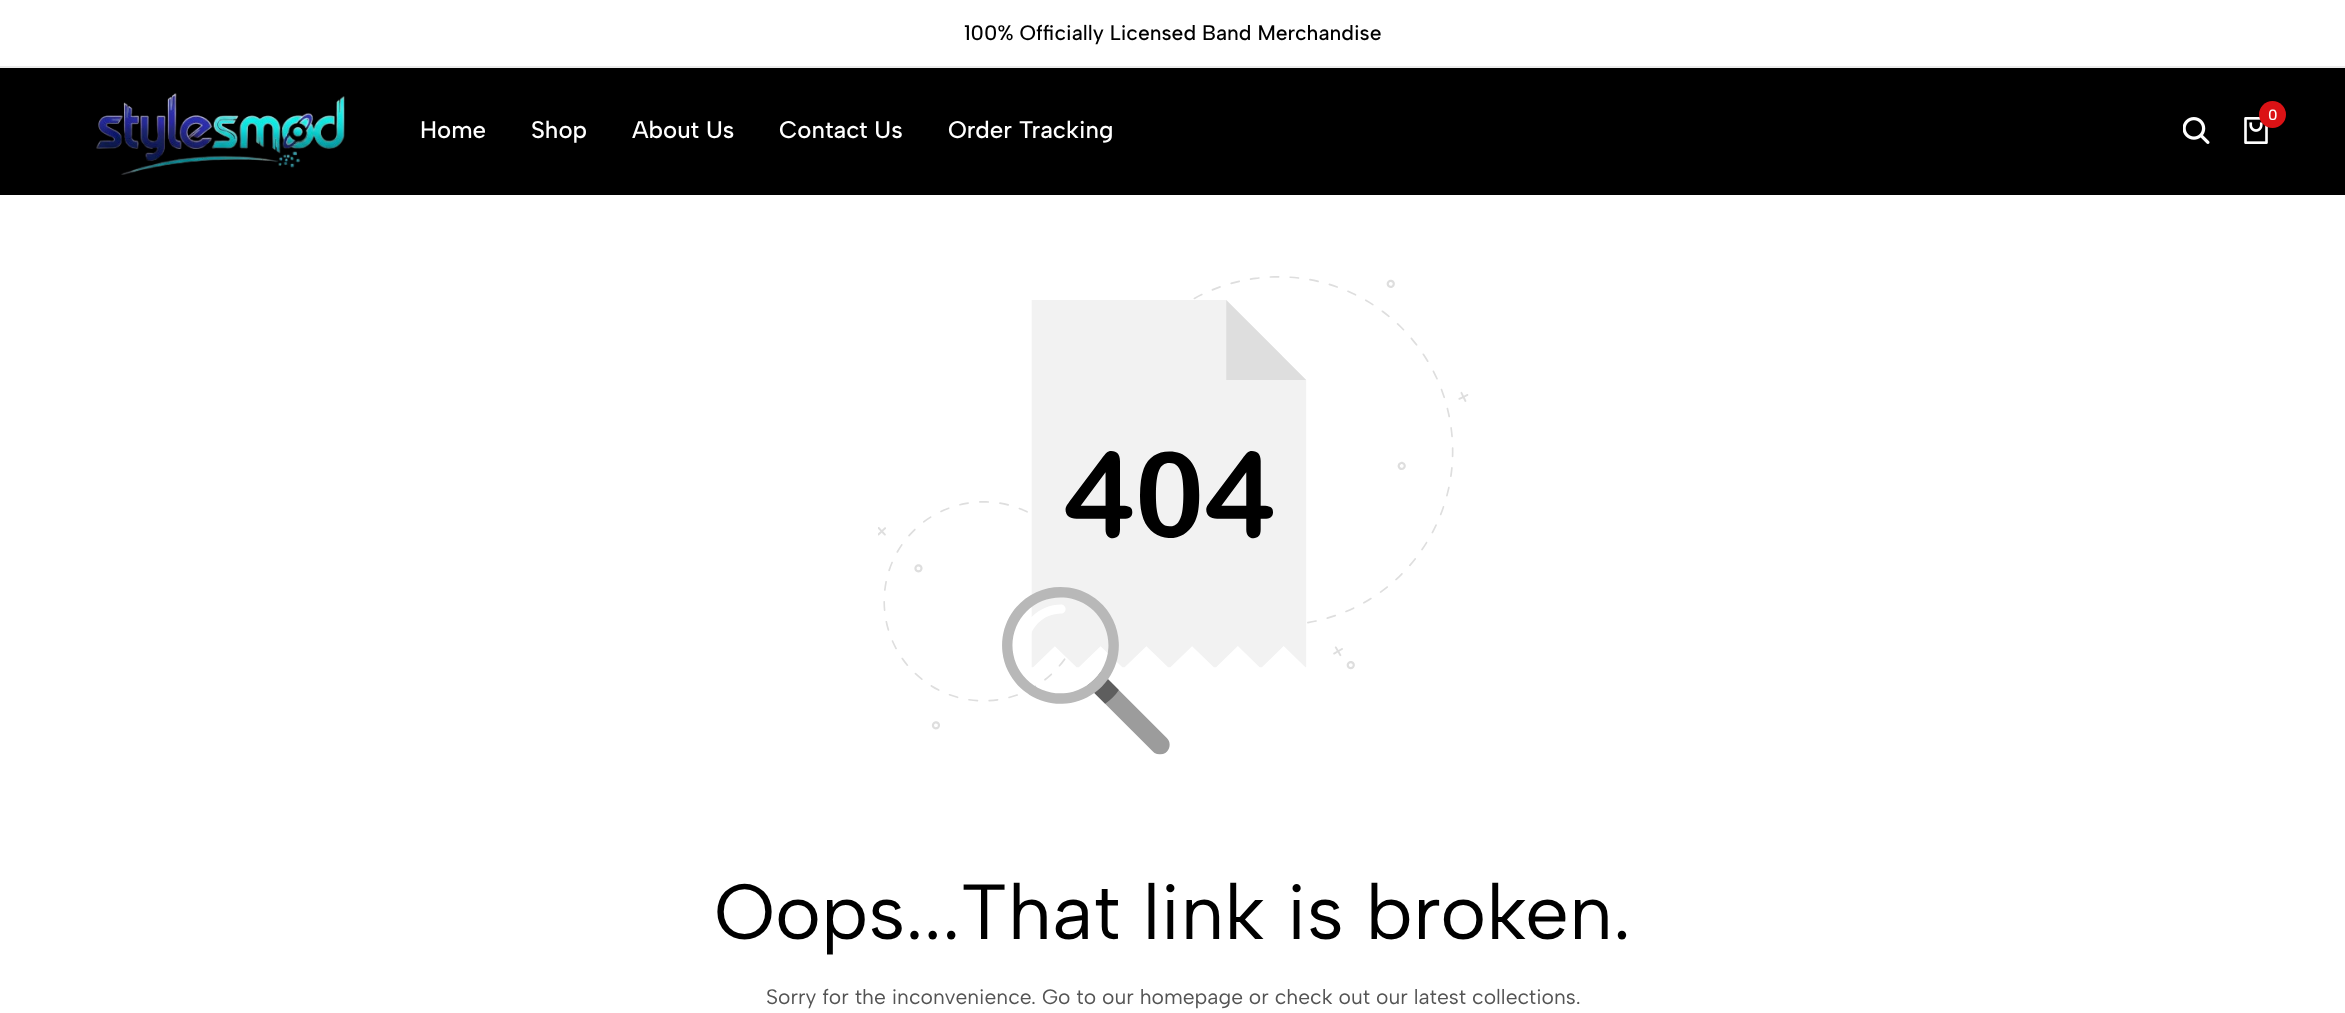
<?xml version="1.0" encoding="UTF-8"?>
<svg xmlns="http://www.w3.org/2000/svg" xmlns:xlink="http://www.w3.org/1999/xlink" width="2345" height="1013">
  <rect width="100%" height="100%" fill="#ffffff" />
  <rect y="66" width="2345" height="2" fill="#ebebeb" />
  <rect y="68" width="2345" height="127" fill="#000000" />
  <image x="2244" y="117" width="24" height="27" xlink:href="image1.png" />
  <circle cx="2272.5" cy="114.5" r="13.5" fill="#db1215" />
  <image x="2183" y="117" width="27" height="27" xlink:href="image2.png" />
  <image x="96" y="93" width="249" height="82" xlink:href="image3.png" />
  <image x="878" y="276" width="591" height="479" xlink:href="image4.png" />
  <text x="964" y="40" style="font-family: Albert Sans; font-size: 21px; font-weight: 500; fill: #000000">100% Officially Licensed Band Merchandise</text>
  <text x="2268" y="120" style="font-family: Albert Sans; font-size: 15px; font-weight: 500; fill: #ffffff">0</text>
  <text x="420" y="138" style="font-family: Albert Sans; font-size: 24px; font-weight: 500; fill: #ffffff">Home</text>
  <text x="531" y="138" style="font-family: Albert Sans; font-size: 24px; font-weight: 500; fill: #ffffff">Shop</text>
  <text x="632" y="138" style="font-family: Albert Sans; font-size: 24px; font-weight: 500; fill: #ffffff">About Us</text>
  <text x="779" y="138" style="font-family: Albert Sans; font-size: 24px; font-weight: 500; fill: #ffffff">Contact Us</text>
  <text x="948" y="138" style="font-family: Albert Sans; font-size: 24px; font-weight: 500; fill: #ffffff">Order Tracking</text>
  <text x="714" y="939" style="font-family: Albert Sans; font-size: 78px; fill: #000000">Oops...That link is broken.</text>
  <text x="766" y="1004" style="font-family: Albert Sans; font-size: 21px; fill: #545454">Sorry for the inconvenience. Go to our homepage or check out our latest collections.</text>
</svg>
